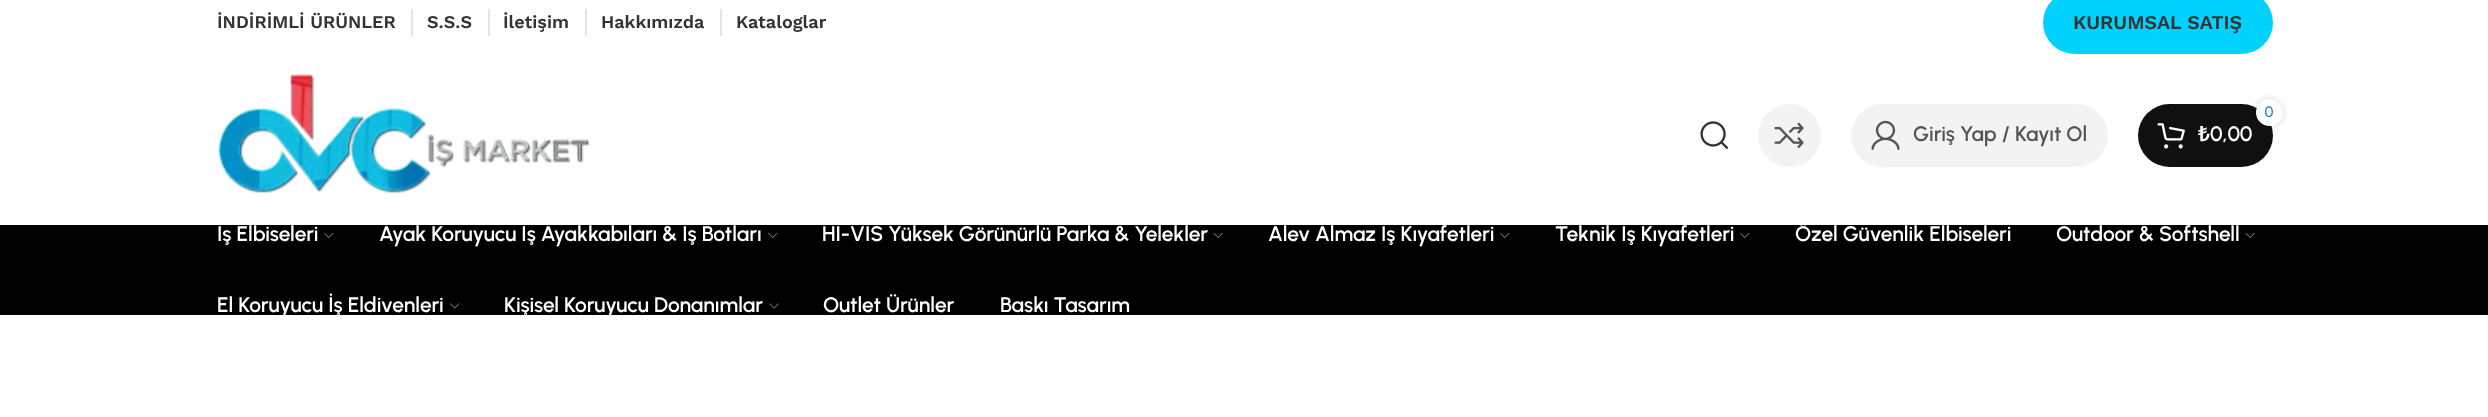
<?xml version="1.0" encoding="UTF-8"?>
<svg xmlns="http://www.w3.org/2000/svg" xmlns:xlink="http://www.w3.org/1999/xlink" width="2488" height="417">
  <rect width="100%" height="100%" fill="#ffffff" />
  <rect x="411" y="9" width="2" height="27" fill="#e4e4e4" />
  <rect x="488" y="9" width="2" height="27" fill="#e4e4e4" />
  <rect x="585" y="9" width="2" height="27" fill="#e4e4e4" />
  <rect x="720" y="9" width="2" height="27" fill="#e4e4e4" />
  <rect x="2043" y="-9" width="230" height="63" rx="31.5" fill="#00d2fd" />
  <image x="218" y="74" width="372" height="119" xlink:href="image1.png" />
  <image x="1700" y="121" width="29" height="28" xlink:href="image2.png" />
  <circle cx="1789.5" cy="135.5" r="31.5" fill="#f3f3f3" />
  <image x="1774" y="122" width="30" height="26" xlink:href="image3.png" />
  <rect x="1851" y="104" width="257" height="63" rx="31.5" fill="#f3f3f3" />
  <image x="1871" y="120" width="29" height="30" xlink:href="image4.png" />
  <rect x="2138" y="104" width="135" height="63" rx="31.5" fill="#101010" />
  <rect x="2256" y="99" width="27" height="27" rx="13.5" fill="#000000" fill-opacity="0.17" filter="blur(3px)" />
  <circle cx="2269.5" cy="112.5" r="13.5" fill="#ffffff" />
  <image x="2157" y="123" width="28" height="26" xlink:href="image5.png" />
  <rect y="225" width="2488" height="90" fill="#000000" />
  <image x="324" y="232" width="10" height="6" xlink:href="image6.png" />
  <image x="768" y="232" width="10" height="6" xlink:href="image6.png" />
  <image x="1213" y="232" width="10" height="6" xlink:href="image7.png" />
  <image x="1500" y="232" width="10" height="6" xlink:href="image6.png" />
  <image x="1740" y="232" width="10" height="6" xlink:href="image6.png" />
  <image x="2245" y="232" width="10" height="6" xlink:href="image7.png" />
  <image x="450" y="303" width="10" height="6" xlink:href="image8.png" />
  <image x="769" y="303" width="10" height="6" xlink:href="image9.png" />
  <text x="217" y="28" style="font-family: Work Sans; font-size: 18px; font-weight: 600; fill: #333333">İNDİRİMLİ ÜRÜNLER</text>
  <text x="427" y="28" style="font-family: Work Sans; font-size: 18px; font-weight: 600; fill: #333333">S.S.S</text>
  <text x="503" y="28" style="font-family: Work Sans; font-size: 18px; font-weight: 600; fill: #333333">İletişim</text>
  <text x="601" y="28" style="font-family: Work Sans; font-size: 18px; font-weight: 600; fill: #333333">Hakkımızda</text>
  <text x="736" y="28" style="font-family: Work Sans; font-size: 18px; font-weight: 600; fill: #333333">Kataloglar</text>
  <text x="2073" y="29" style="font-family: Work Sans; font-size: 19.5px; font-weight: 600; fill: #333333">KURUMSAL SATIŞ</text>
  <text x="1913" y="141" style="font-family: Urbanist; font-size: 21px; font-weight: 600; fill: #545454">Giriş Yap / Kayıt Ol</text>
  <text x="2264" y="117" style="font-family: Work Sans; font-size: 16px; fill: #1287ba">0</text>
  <text x="2198" y="141" style="font-family: Noto Sans; font-size: 21px; font-weight: 600; fill: #ffffff">₺</text>
  <text x="2210" y="141" style="font-family: Urbanist; font-size: 21px; font-weight: 600; fill: #ffffff">0,00</text>
  <text x="217" y="241" style="font-family: Urbanist; font-size: 21px; font-weight: 600; fill: #ffffff">İş Elbiseleri</text>
  <text x="379" y="241" style="font-family: Urbanist; font-size: 21px; font-weight: 600; fill: #ffffff">Ayak Koruyucu İş Ayakkabıları &amp; İş Botları</text>
  <text x="822" y="241" style="font-family: Urbanist; font-size: 21px; font-weight: 600; fill: #ffffff">HI-VIS Yüksek Görünürlü Parka &amp; Yelekler</text>
  <text x="1268" y="241" style="font-family: Urbanist; font-size: 21px; font-weight: 600; fill: #ffffff">Alev Almaz İş Kıyafetleri</text>
  <text x="1555" y="241" style="font-family: Urbanist; font-size: 21px; font-weight: 600; fill: #ffffff">Teknik İş Kıyafetleri</text>
  <text x="1795" y="241" style="font-family: Urbanist; font-size: 21px; font-weight: 600; fill: #ffffff">Özel Güvenlik Elbiseleri</text>
  <text x="2056" y="241" style="font-family: Urbanist; font-size: 21px; font-weight: 600; fill: #ffffff">Outdoor &amp; Softshell</text>
  <text x="217" y="312" style="font-family: Urbanist; font-size: 21px; font-weight: 600; fill: #ffffff">El Koruyucu İş Eldivenleri</text>
  <text x="504" y="312" style="font-family: Urbanist; font-size: 21px; font-weight: 600; fill: #ffffff">Kişisel Koruyucu Donanımlar</text>
  <text x="823" y="312" style="font-family: Urbanist; font-size: 21px; font-weight: 600; fill: #ffffff">Outlet Ürünler</text>
  <text x="1000" y="312" style="font-family: Urbanist; font-size: 21px; font-weight: 600; fill: #ffffff">Baskı Tasarım</text>
</svg>
